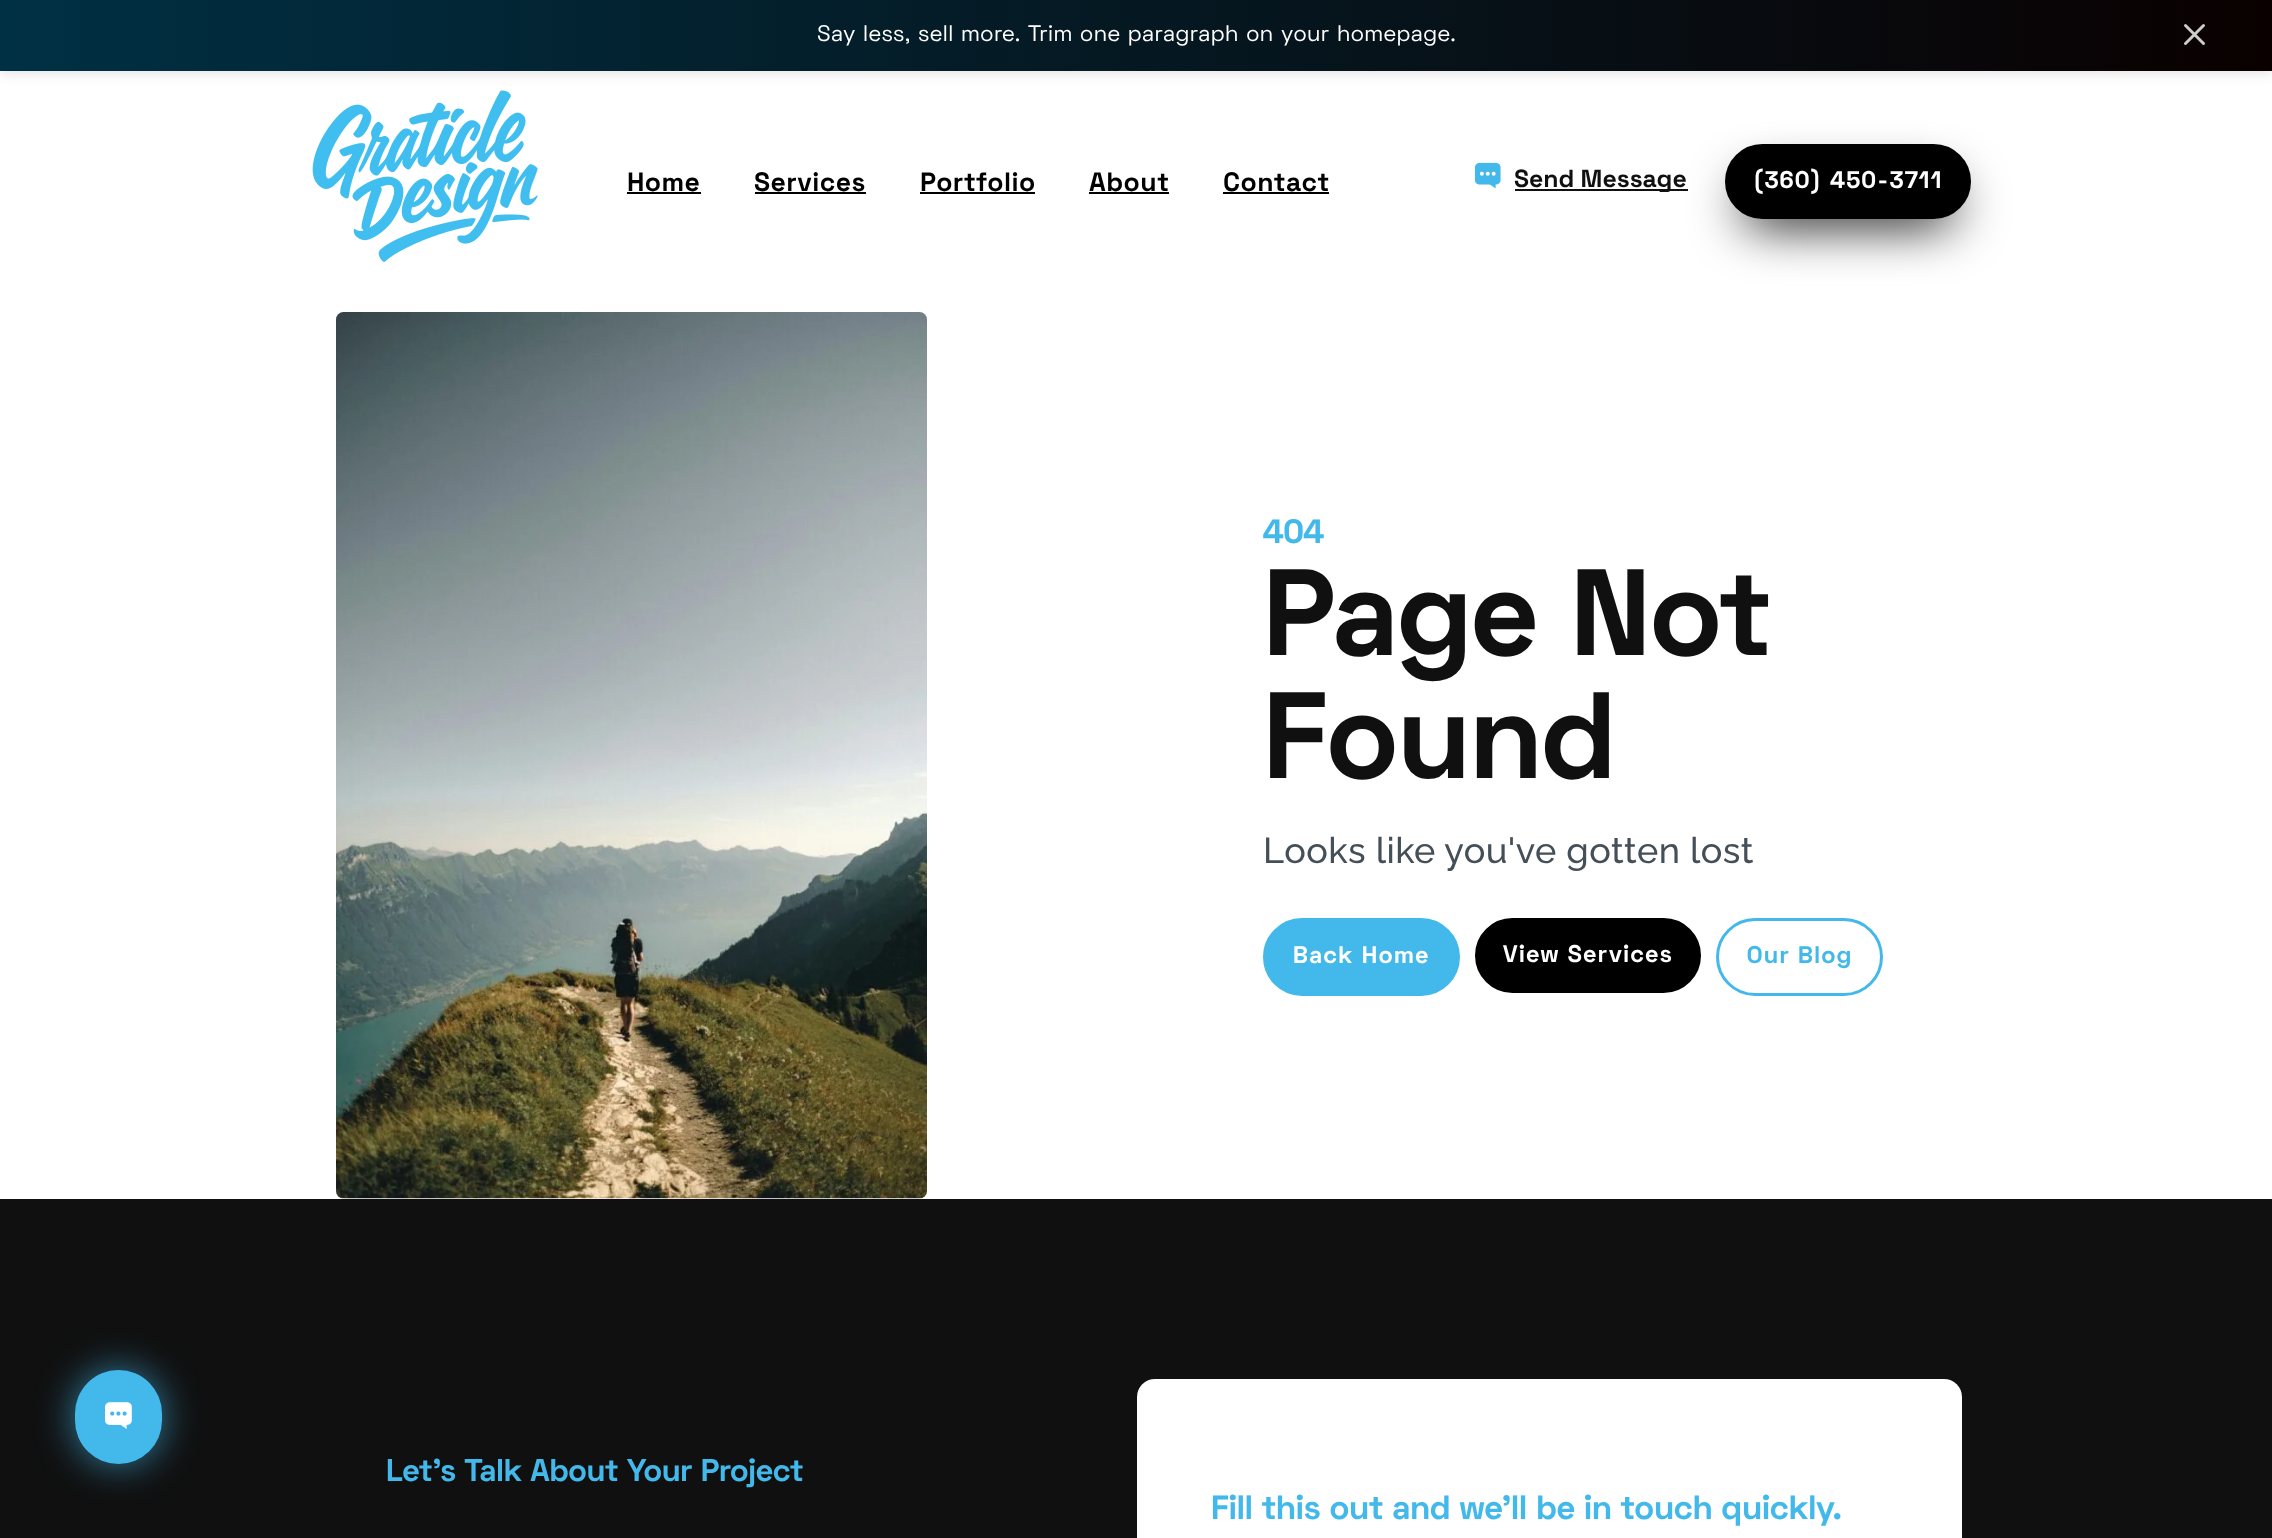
<?xml version="1.0" encoding="UTF-8"?>
<svg xmlns="http://www.w3.org/2000/svg" xmlns:xlink="http://www.w3.org/1999/xlink" width="2272" height="1538">
  <defs>
    <linearGradient id="g1" gradientUnits="userSpaceOnUse" x1="0" y1="35" x2="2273" y2="35"><stop offset="0" stop-color="#003044" /><stop offset="1" stop-color="#0a0000" /></linearGradient>
  </defs>
  <rect width="100%" height="100%" fill="#ffffff" />
  <image x="312" y="90" width="226" height="172" xlink:href="image1.png" />
  <rect y="3" width="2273" height="71" fill="#000000" fill-opacity="0.1" filter="blur(6px)" />
  <rect width="2272" height="71" fill="url(#g1)" />
  <path d="M 2203.5 25.5 l -18 18 m 0 -18 l 18 18" fill="none" stroke="#cecccc" stroke-width="3" stroke-linecap="round" />
  <rect x="627" y="192" width="74" height="2" fill="#000000" />
  <rect x="755" y="192" width="111" height="2" fill="#000000" />
  <rect x="920" y="192" width="115" height="2" fill="#000000" />
  <rect x="1089" y="192" width="80" height="2" fill="#000000" />
  <rect x="1223" y="192" width="106" height="2" fill="#000000" />
  <image x="1474" y="162" width="27" height="27" xlink:href="image2.png" />
  <rect x="1515" y="189" width="173" height="2" fill="#101010" />
  <rect x="1742" y="182" width="213" height="42" rx="21" fill="#000000" filter="blur(26px)" />
  <rect x="1726" y="145" width="244" height="73" rx="36.5" fill="#000000" stroke="#000000" stroke-width="2" />
  <image x="336" y="312" width="591" height="887" xlink:href="image3.png" />
  <rect x="1264.5" y="919.5" width="194" height="75" rx="37.5" fill="#43b8ea" stroke="#43b8ea" stroke-width="3" />
  <rect x="1476" y="919" width="224" height="73" rx="36.5" fill="#000000" stroke="#000000" stroke-width="2" />
  <rect x="1717.5" y="919.5" width="164" height="75" rx="37.5" fill="none" stroke="#43b8ea" stroke-width="3" />
  <rect y="1199" width="2272" height="339" fill="#101010" />
  <rect x="75" y="1370" width="87" height="94" rx="43.5" fill="#43b8ea" fill-opacity="0.69" filter="blur(19px)" />
  <rect x="75" y="1370" width="87" height="94" rx="43.5" fill="#43b8ea" />
  <image x="105" y="1402" width="27" height="27" xlink:href="image4.png" />
  <rect x="1137" y="1379" width="825" height="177" rx="18" fill="#ffffff" />
  <text x="817" y="41" style="font-family: Space Grotesk; font-size: 22.5px; letter-spacing: 0.45px; fill: #ffffff">Say less, sell more. Trim one paragraph on your homepage.</text>
  <text x="627" y="191" style="font-family: 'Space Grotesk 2'; font-size: 26.5px; font-weight: bold; letter-spacing: 0.45px; fill: #000000">Home</text>
  <text x="754" y="191" style="font-family: 'Space Grotesk 2'; font-size: 26.5px; font-weight: bold; letter-spacing: 0.45px; fill: #000000">Services</text>
  <text x="920" y="191" style="font-family: 'Space Grotesk 2'; font-size: 26.5px; font-weight: bold; letter-spacing: 0.45px; fill: #000000">Portfolio</text>
  <text x="1089" y="191" style="font-family: 'Space Grotesk 2'; font-size: 26.5px; font-weight: bold; letter-spacing: 0.45px; fill: #000000">About</text>
  <text x="1223" y="191" style="font-family: 'Space Grotesk 2'; font-size: 26.5px; font-weight: bold; letter-spacing: 0.45px; fill: #000000">Contact</text>
  <text x="1514" y="187" style="font-family: 'Space Grotesk 2'; font-size: 24.75px; font-weight: bold; fill: #101010">Send Message</text>
  <text x="1753" y="188" style="font-family: Space Grotesk; font-size: 24px; font-weight: bold; letter-spacing: 1.5px; fill: #ffffff">(360) 450-3711</text>
  <text x="1263" y="543" style="font-family: Space Grotesk; font-size: 33.75px; font-weight: bold; fill: #43b8ea">404</text>
  <text x="1263" y="655" style="font-family: Space Grotesk; font-size: 122.5px; font-weight: bold; fill: #101010">Page Not</text>
  <text x="1263" y="778" style="font-family: Space Grotesk; font-size: 122.5px; font-weight: bold; fill: #101010">Found</text>
  <text x="1263" y="863" style="font-family: Raleway; font-size: 36px; font-weight: 500; letter-spacing: 0.45px; fill: #454f57">Looks like you've gotten lost</text>
  <text x="1293" y="963" style="font-family: Space Grotesk; font-size: 24px; font-weight: bold; letter-spacing: 1.5px; fill: #ffffff">Back Home</text>
  <text x="1503" y="962" style="font-family: Space Grotesk; font-size: 24px; font-weight: bold; letter-spacing: 1.5px; fill: #ffffff">View Services</text>
  <text x="1747" y="963" style="font-family: Space Grotesk; font-size: 24px; font-weight: bold; letter-spacing: 1.5px; fill: #43b8ea">Our Blog</text>
  <text x="386" y="1481" style="font-family: Space Grotesk; font-size: 31.5px; font-weight: bold; fill: #43b8ea">Let’s Talk About Your Project</text>
  <text x="1211" y="1519" style="font-family: Space Grotesk; font-size: 33.75px; font-weight: bold; fill: #43b8ea">Fill this out and we’ll be in touch quickly.</text>
</svg>
